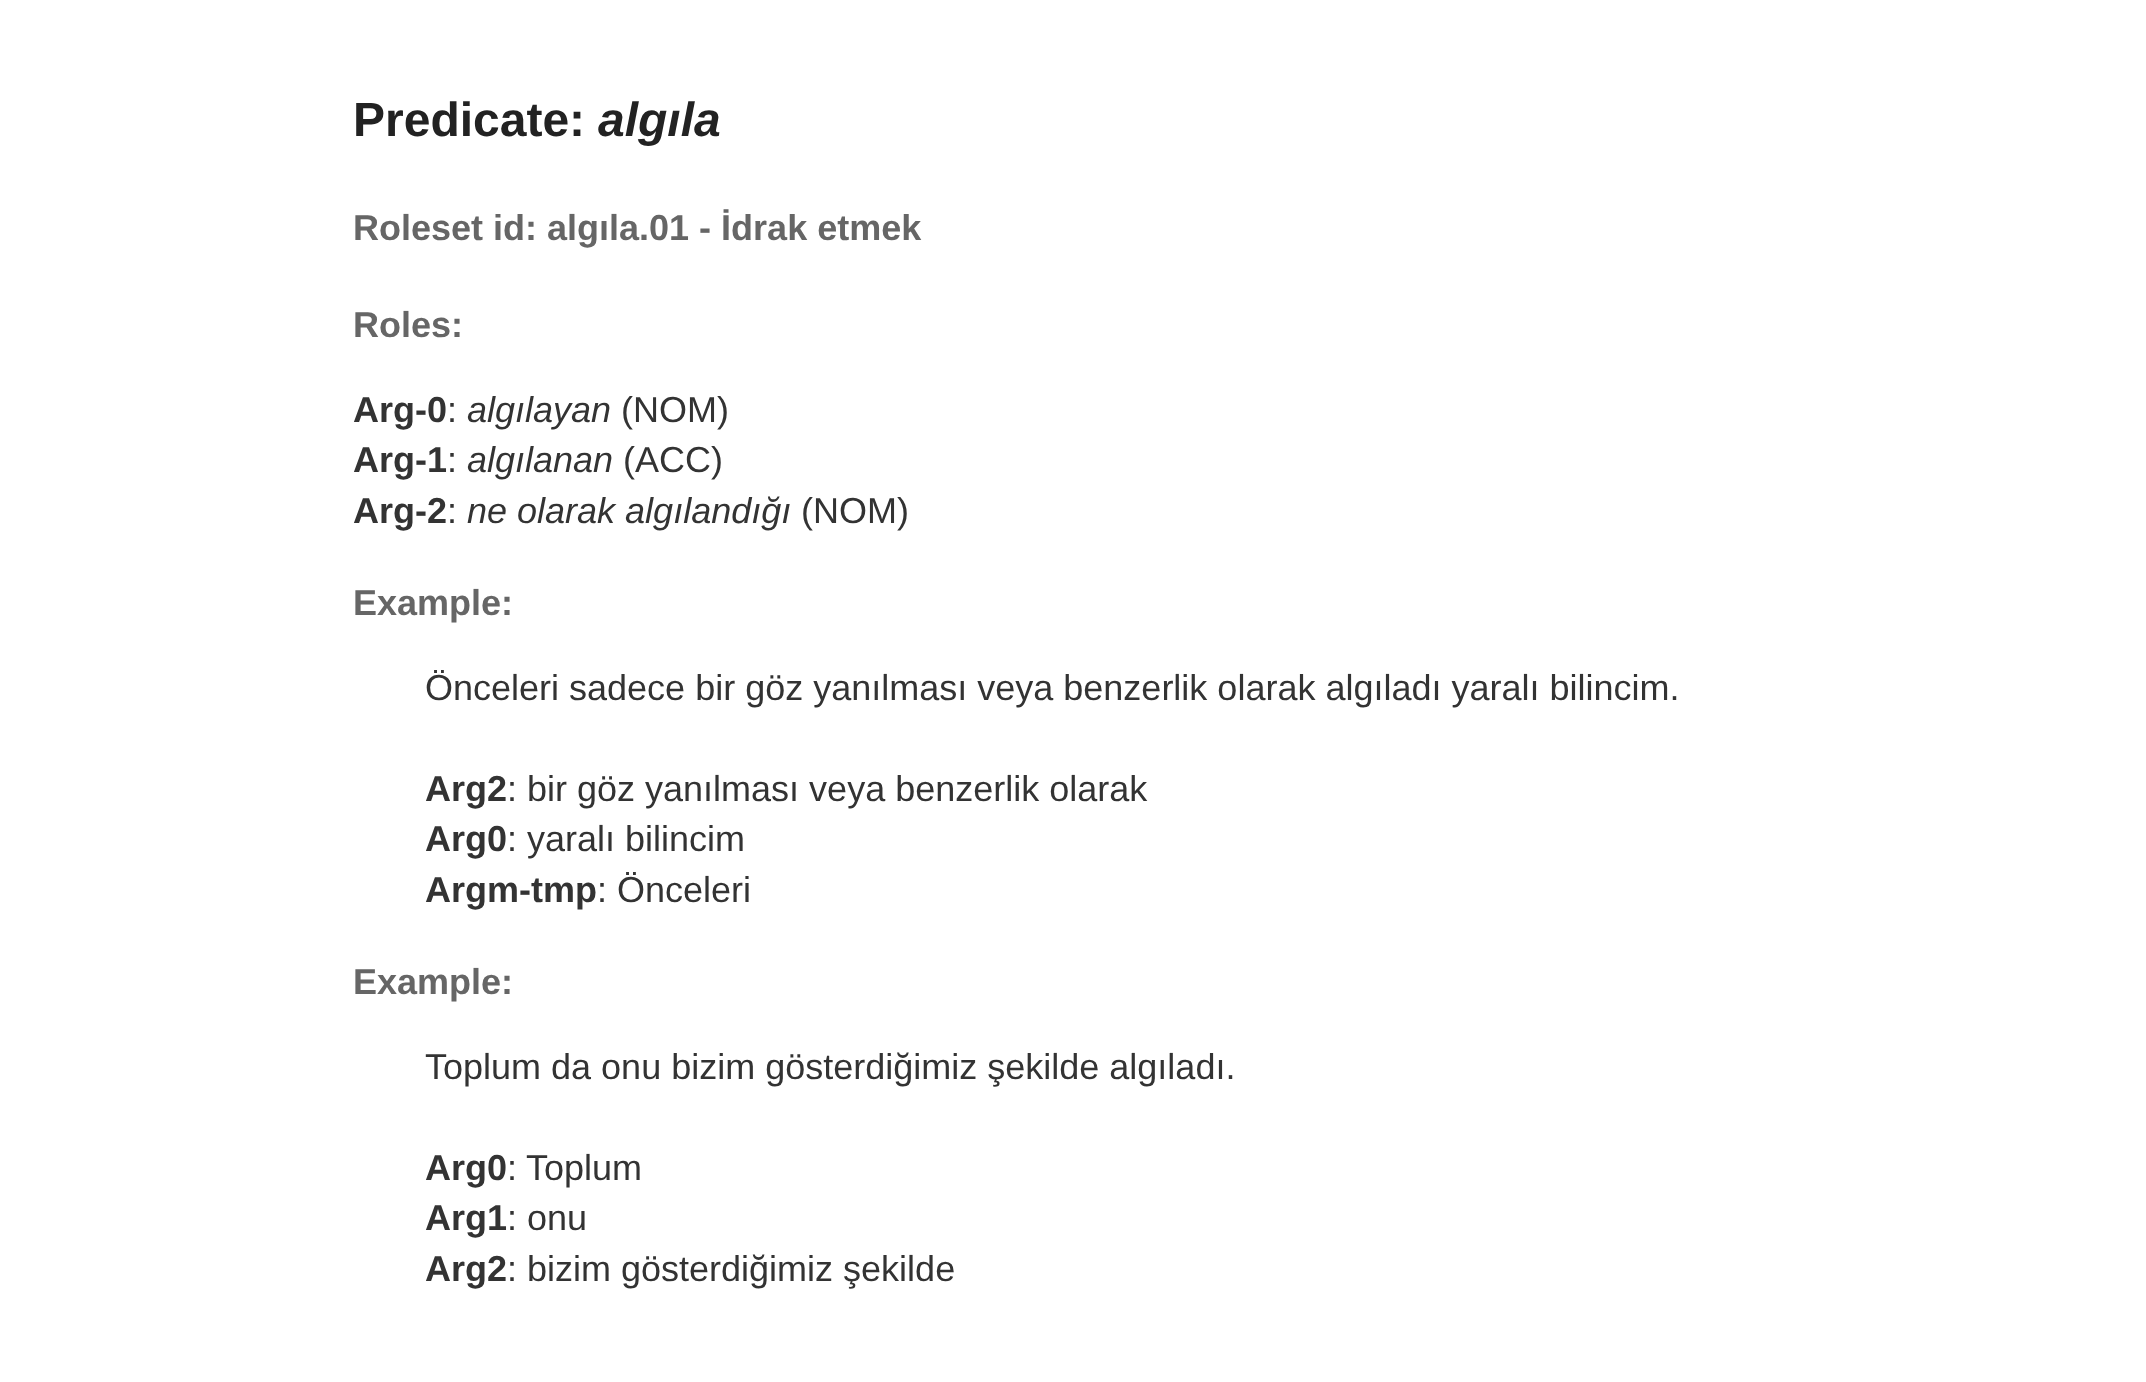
<?xml version="1.0" encoding="UTF-8"?>
<svg xmlns="http://www.w3.org/2000/svg" xmlns:xlink="http://www.w3.org/1999/xlink" width="2146" height="1382">
  <rect width="100%" height="100%" fill="#ffffff" />
  <text x="353" y="136" style="font-family: Liberation Sans; font-size: 48px; font-weight: bold; fill: #222222">Predicate:</text>
  <text x="598" y="136" style="font-family: Liberation Sans; font-size: 48px; font-weight: bold; font-style: italic; fill: #222222">algıla</text>
  <text x="353" y="240" style="font-family: Liberation Sans; font-size: 36px; font-weight: bold; fill: #666666">Roleset id: algıla.01 - İdrak etmek</text>
  <text x="353" y="337" style="font-family: Liberation Sans; font-size: 36px; font-weight: bold; fill: #666666">Roles:</text>
  <text x="353" y="422" style="font-family: Liberation Sans; font-size: 36px; font-weight: bold; fill: #333333">Arg-0</text>
  <text x="447" y="422" style="font-family: Liberation Sans; font-size: 36px; fill: #333333">:</text>
  <text x="467" y="422" style="font-family: Liberation Sans; font-size: 36px; font-style: italic; fill: #333333">algılayan</text>
  <text x="621" y="422" style="font-family: Liberation Sans; font-size: 36px; fill: #333333">(NOM)</text>
  <text x="353" y="472" style="font-family: Liberation Sans; font-size: 36px; font-weight: bold; fill: #333333">Arg-1</text>
  <text x="447" y="472" style="font-family: Liberation Sans; font-size: 36px; fill: #333333">:</text>
  <text x="467" y="472" style="font-family: Liberation Sans; font-size: 36px; font-style: italic; fill: #333333">algılanan</text>
  <text x="623" y="472" style="font-family: Liberation Sans; font-size: 36px; fill: #333333">(ACC)</text>
  <text x="353" y="523" style="font-family: Liberation Sans; font-size: 36px; font-weight: bold; fill: #333333">Arg-2</text>
  <text x="447" y="523" style="font-family: Liberation Sans; font-size: 36px; fill: #333333">:</text>
  <text x="467" y="523" style="font-family: Liberation Sans; font-size: 36px; font-style: italic; fill: #333333">ne olarak algılandığı</text>
  <text x="801" y="523" style="font-family: Liberation Sans; font-size: 36px; fill: #333333">(NOM)</text>
  <text x="353" y="615" style="font-family: Liberation Sans; font-size: 36px; font-weight: bold; fill: #666666">Example:</text>
  <text x="425" y="700" style="font-family: Liberation Sans; font-size: 36px; fill: #333333">Önceleri sadece bir göz yanılması veya benzerlik olarak algıladı yaralı bilincim.</text>
  <text x="425" y="801" style="font-family: Liberation Sans; font-size: 36px; font-weight: bold; fill: #333333">Arg2</text>
  <text x="507" y="801" style="font-family: Liberation Sans; font-size: 36px; fill: #333333">: bir göz yanılması veya benzerlik olarak</text>
  <text x="425" y="851" style="font-family: Liberation Sans; font-size: 36px; font-weight: bold; fill: #333333">Arg0</text>
  <text x="507" y="851" style="font-family: Liberation Sans; font-size: 36px; fill: #333333">: yaralı bilincim</text>
  <text x="425" y="902" style="font-family: Liberation Sans; font-size: 36px; font-weight: bold; fill: #333333">Argm-tmp</text>
  <text x="597" y="902" style="font-family: Liberation Sans; font-size: 36px; fill: #333333">: Önceleri</text>
  <text x="353" y="994" style="font-family: Liberation Sans; font-size: 36px; font-weight: bold; fill: #666666">Example:</text>
  <text x="425" y="1079" style="font-family: Liberation Sans; font-size: 36px; fill: #333333">Toplum da onu bizim gösterdiğimiz şekilde algıladı.</text>
  <text x="425" y="1180" style="font-family: Liberation Sans; font-size: 36px; font-weight: bold; fill: #333333">Arg0</text>
  <text x="507" y="1180" style="font-family: Liberation Sans; font-size: 36px; fill: #333333">:</text>
  <text x="526" y="1180" style="font-family: Liberation Sans; font-size: 36px; fill: #333333">Toplum</text>
  <text x="425" y="1230" style="font-family: Liberation Sans; font-size: 36px; font-weight: bold; fill: #333333">Arg1</text>
  <text x="507" y="1230" style="font-family: Liberation Sans; font-size: 36px; fill: #333333">: onu</text>
  <text x="425" y="1281" style="font-family: Liberation Sans; font-size: 36px; font-weight: bold; fill: #333333">Arg2</text>
  <text x="507" y="1281" style="font-family: Liberation Sans; font-size: 36px; fill: #333333">: bizim gösterdiğimiz şekilde</text>
</svg>
